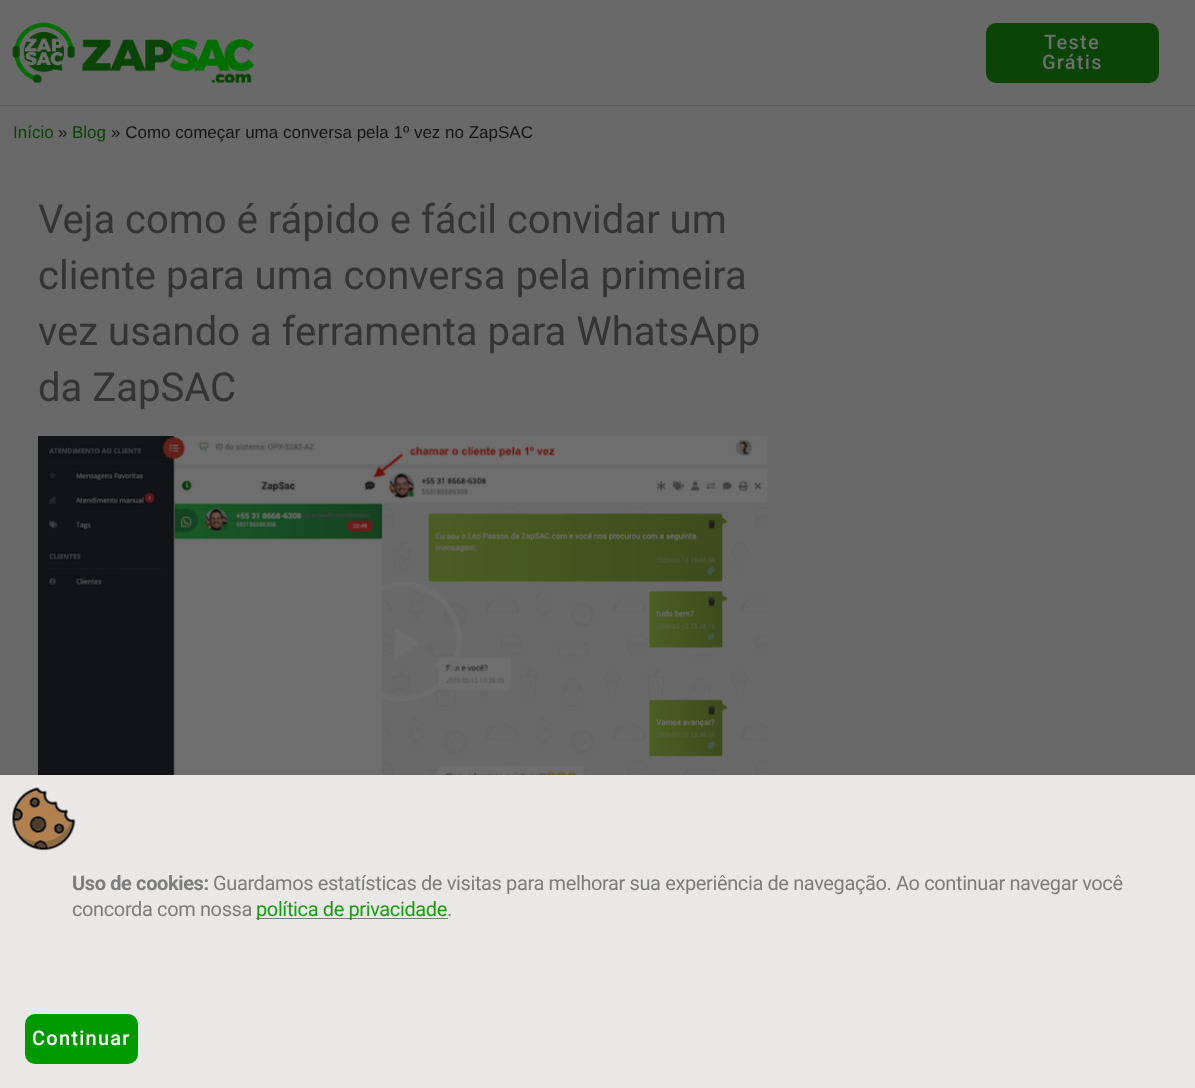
<?xml version="1.0" encoding="UTF-8"?>
<svg xmlns="http://www.w3.org/2000/svg" xmlns:xlink="http://www.w3.org/1999/xlink" width="1195" height="1088">
  <rect width="100%" height="100%" fill="#696969" />
  <rect y="105" width="1195" height="1" fill="#5a5a5a" />
  <image x="12" y="22" width="242" height="61" xlink:href="image1.png" />
  <rect x="986" y="23" width="173" height="60" rx="10" fill="#0a4406" />
  <image x="38" y="436" width="730" height="339" xlink:href="image2.png" />
  <path d="M 445 599 c -10 -10 -23 -16 -36 -17 c -57 -5 -87 61 -49 101 c 39 41 107 9 102 -48 c -2 -14 -8 -26 -17 -36 z m -4 4 c 34 35 8 95 -41 93 c -13 -1 -25 -6 -34 -14 c -53 -52 22 -130 75 -79 z m -46 25 v 31 l 25 -16 z" fill="#6e6e6e" fill-opacity="0.8" />
  <rect y="775" width="1195" height="313" fill="#e9e8e6" />
  <image x="12" y="787" width="64" height="64" xlink:href="image3.png" />
  <rect x="256" y="918" width="192" height="1" fill="#7d7d7d" />
  <rect x="25" y="1014" width="113" height="50" rx="10" fill="#009900" />
  <text x="1044" y="49" style="font-family: Roboto; font-size: 20px; font-weight: 500; letter-spacing: 1.25px; fill: #6e6e6e">Teste</text>
  <text x="1042" y="69" style="font-family: Roboto; font-size: 20px; font-weight: 500; letter-spacing: 1.25px; fill: #6e6e6e">Grátis</text>
  <text x="13" y="138" style="font-family: Liberation Sans; font-size: 17px; fill: #0a4406">Início</text>
  <text x="58" y="138" style="font-family: Liberation Sans; font-size: 17px; fill: #161616">»</text>
  <text x="72" y="138" style="font-family: Liberation Sans; font-size: 17px; fill: #0a4406">Blog</text>
  <text x="111" y="138" style="font-family: Liberation Sans; font-size: 17px; fill: #161616">» Como começar uma conversa pela 1º vez no ZapSAC</text>
  <text x="38" y="233" style="font-family: Roboto; font-size: 40px; fill: #343434">Veja como é rápido e fácil convidar um</text>
  <text x="38" y="289" style="font-family: Roboto; font-size: 40px; fill: #343434">cliente para uma conversa pela primeira</text>
  <text x="38" y="345" style="font-family: Roboto; font-size: 40px; fill: #343434">vez usando a ferramenta para WhatsApp</text>
  <text x="38" y="401" style="font-family: Roboto; font-size: 40px; fill: #343434">da ZapSAC</text>
  <text x="72" y="890" style="font-family: Roboto; font-size: 20px; font-weight: bold; letter-spacing: -0.38px; fill: #7d7d7d">Uso de cookies:</text>
  <text x="213" y="890" style="font-family: Roboto; font-size: 20px; letter-spacing: -0.38px; fill: #7d7d7d">Guardamos estatísticas de visitas para melhorar sua experiência de navegação. Ao continuar navegar você</text>
  <text x="72" y="916" style="font-family: Roboto; font-size: 20px; letter-spacing: -0.38px; fill: #7d7d7d">concorda com nossa</text>
  <text x="256" y="916" style="font-family: Roboto; font-size: 20px; letter-spacing: -0.38px; fill: #189d0f">política de privacidade</text>
  <text x="447" y="916" style="font-family: Roboto; font-size: 20px; letter-spacing: -0.38px; fill: #7d7d7d">.</text>
  <text x="32" y="1045" style="font-family: Roboto; font-size: 20px; font-weight: 500; letter-spacing: 1.25px; fill: #ffffff">Continuar</text>
</svg>
